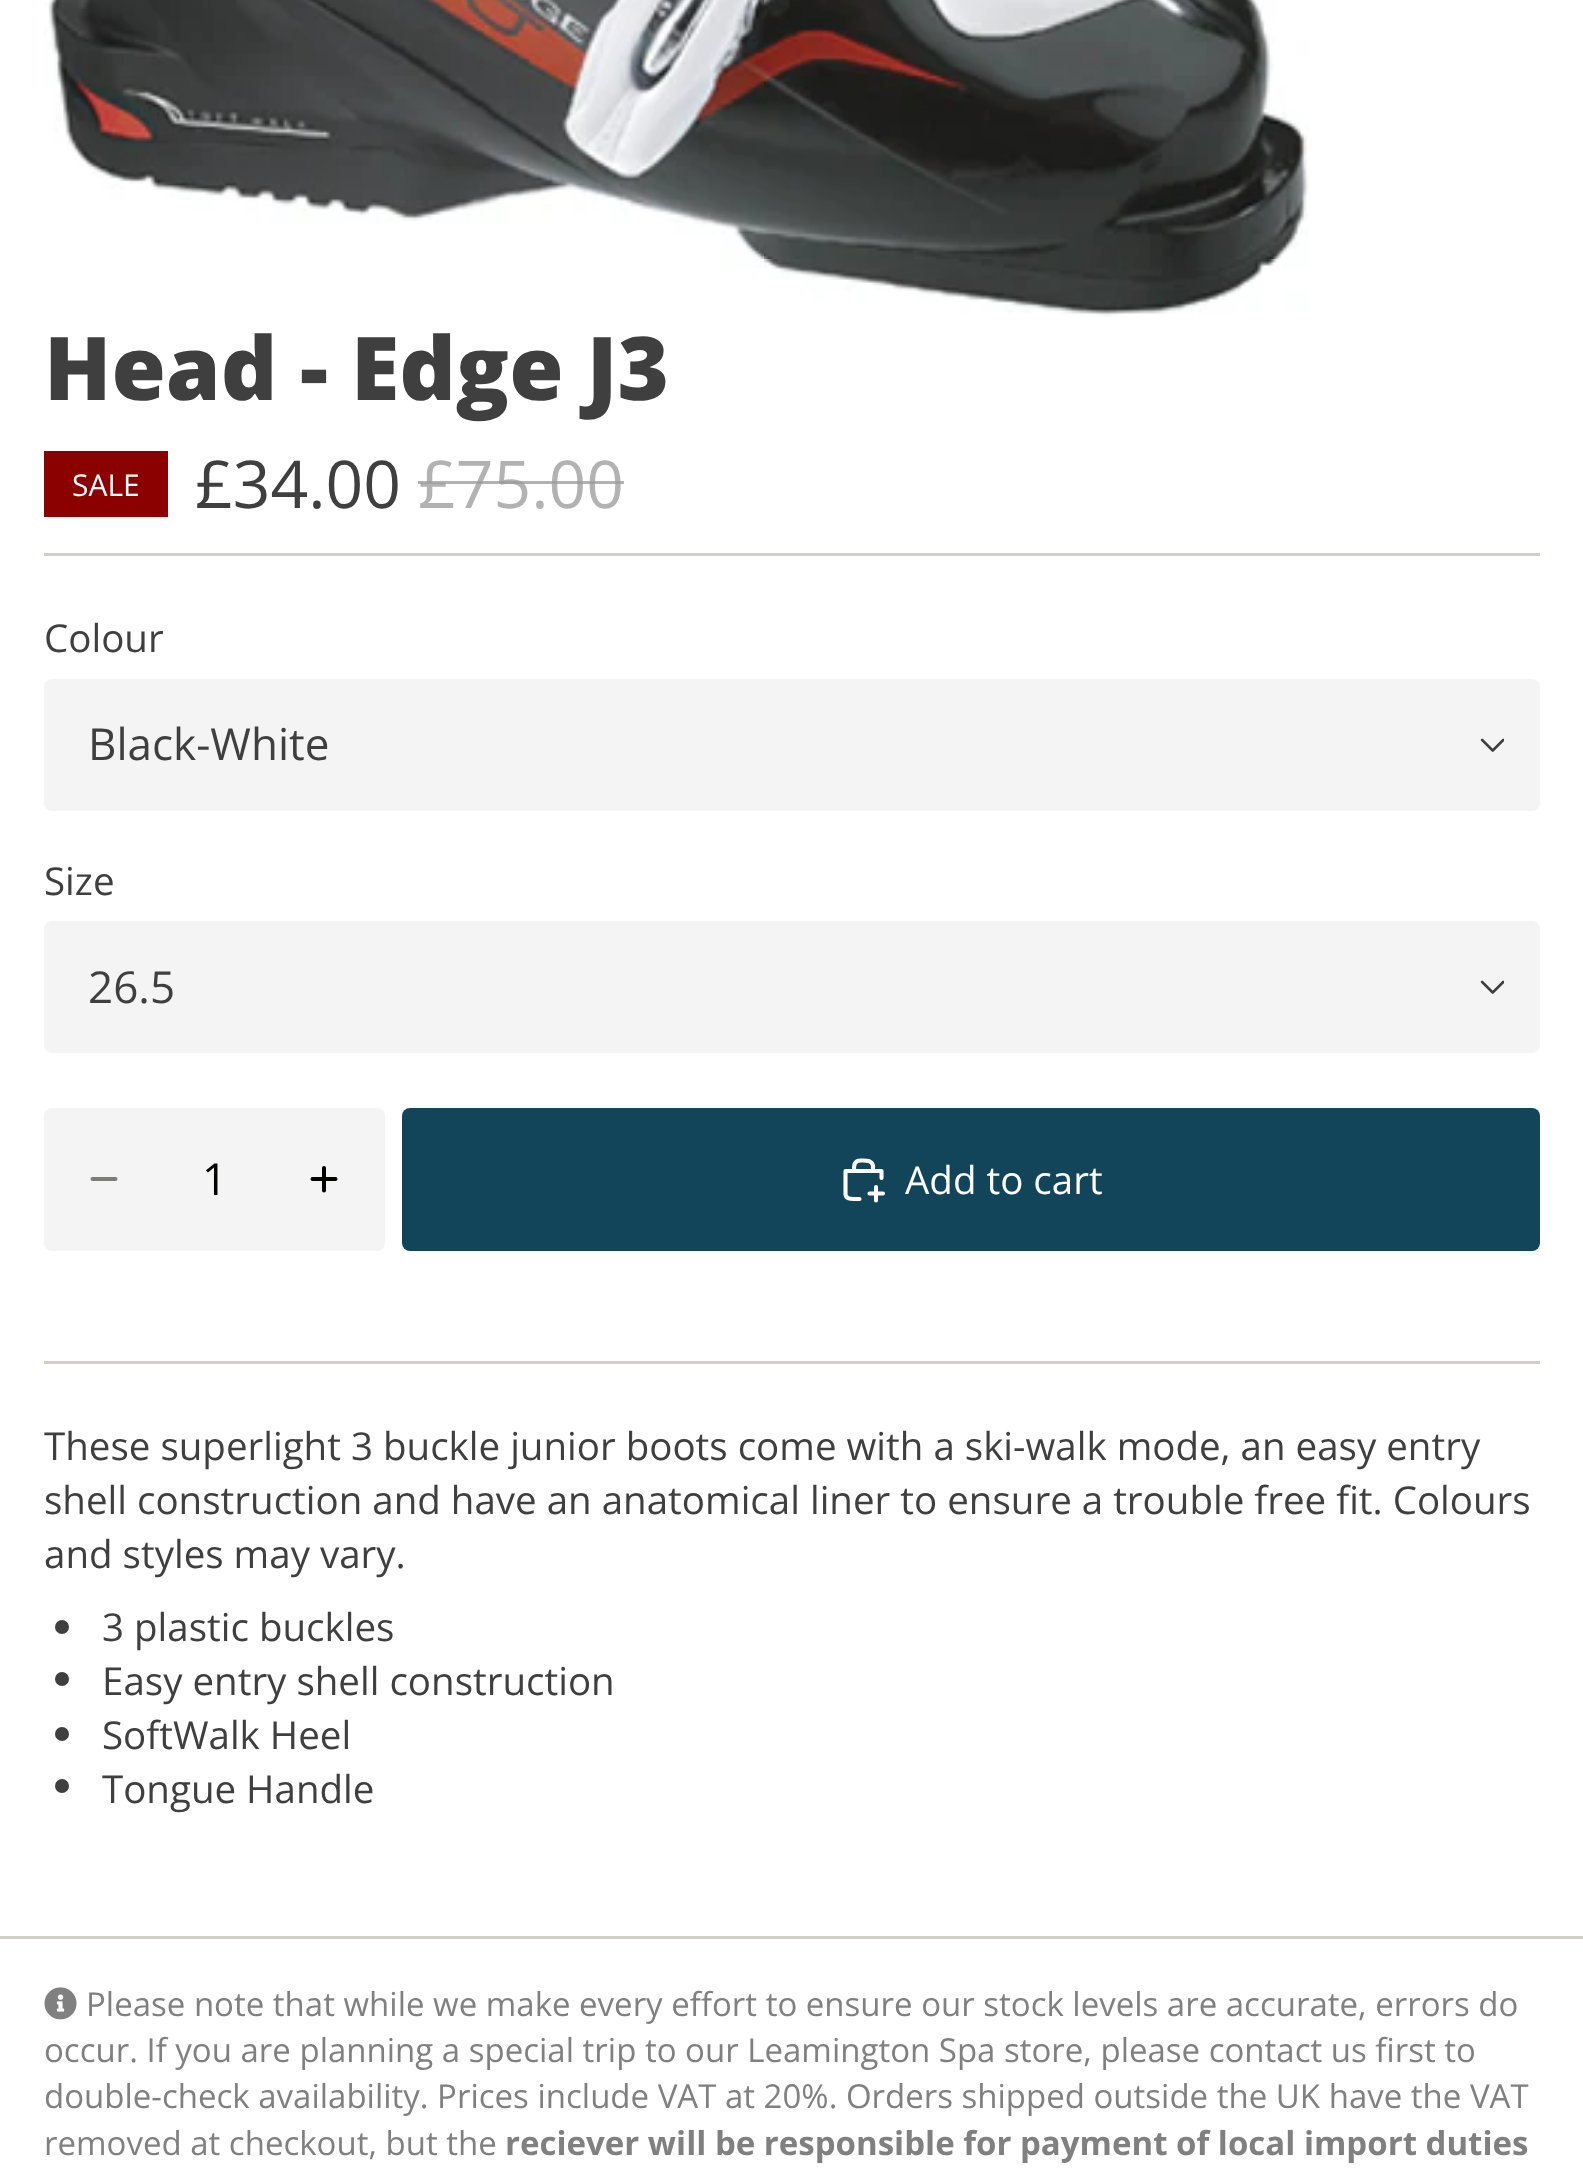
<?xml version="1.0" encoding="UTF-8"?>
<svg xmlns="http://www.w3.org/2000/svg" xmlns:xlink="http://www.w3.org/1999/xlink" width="1583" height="2172">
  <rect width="100%" height="100%" fill="#ffffff" />
  <image x="44" y="0" width="1265" height="317" xlink:href="image1.png" />
  <rect x="44" y="451" width="124" height="66" fill="#8b0000" />
  <rect x="44" y="553" width="1496" height="3" fill="#d3cec5" />
  <rect x="44" y="679" width="1496" height="132" rx="8" fill="#f4f4f4" />
  <image x="1480" y="738" width="24" height="14" xlink:href="image2.png" />
  <rect x="44" y="921" width="1496" height="132" rx="8" fill="#f4f4f4" />
  <image x="1480" y="980" width="24" height="14" xlink:href="image2.png" />
  <rect x="44" y="1108" width="341" height="143" rx="8" fill="#f4f4f4" />
  <path d="M 92.5 1179 h 23" fill="none" stroke="#7c7c7b" stroke-width="4" stroke-linecap="round" />
  <path d="M 312.5 1179 h 23 m -11.5 -11 v 22.5" fill="none" stroke="#030302" stroke-width="4" stroke-linecap="round" />
  <rect x="402" y="1108" width="1138" height="143" rx="8" fill="#124559" />
  <path d="M 881.5 1178 v -7 h -36 v 23.5 c 1 4.5 4.5 4.5 8.5 4.5 h 5.5 m 0.5 -38.5 c 5 0 11.5 -1 13 5 v 5.5 h -19 c 0 -4.5 -0.5 -10.5 6.5 -10.5" fill="none" stroke="#ffffff" stroke-width="4.1" stroke-linecap="round" stroke-linejoin="round" />
  <path d="M 876 1187 v 13.5 m 7 -7 h -13.5" fill="none" stroke="#ffffff" stroke-width="4.1" stroke-linecap="round" />
  <rect x="44" y="1361" width="1496" height="3" fill="#d3cec5" />
  <circle cx="62" cy="1627" r="7" fill="#3f3f3f" />
  <circle cx="62" cy="1679" r="7" fill="#3f3f3f" />
  <circle cx="62" cy="1734" r="7" fill="#3f3f3f" />
  <circle cx="62" cy="1786" r="7" fill="#3f3f3f" />
  <rect y="1936" width="1583" height="3" fill="#d3cec5" />
  <image x="44" y="1987" width="33" height="33" xlink:href="image3.png" />
  <text x="44" y="400" style="font-family: Open Sans; font-size: 88px; font-weight: 800; fill: #3f3f3f">Head - Edge J3</text>
  <text x="72" y="496" style="font-family: Open Sans; font-size: 30px; fill: #ffffff">SALE</text>
  <text x="195" y="508" style="font-family: Open Sans; font-size: 66px; fill: #3f3f3f">£34.00</text>
  <text x="418" y="508" style="font-family: Open Sans; font-size: 66px; fill: #b2b2b2">£75.00</text>
  <rect x="418" y="481" width="206" height="3" fill="#9a9a9a" fill-opacity="0.76" />
  <text x="44" y="652" style="font-family: Open Sans; font-size: 38.5px; fill: #3f3f3f">Colour</text>
  <text x="88" y="760" style="font-family: Open Sans; font-size: 44px; fill: #3f3f3f">Black-White</text>
  <text x="44" y="895" style="font-family: Open Sans; font-size: 38.5px; fill: #3f3f3f">Size</text>
  <text x="88" y="1003" style="font-family: Open Sans; font-size: 44px; fill: #3f3f3f">26.5</text>
  <text x="202" y="1195" style="font-family: Open Sans; font-size: 44px; fill: #030302">1</text>
  <text x="905" y="1194" style="font-family: Open Sans; font-size: 38.5px; fill: #ffffff">Add to cart</text>
  <text x="44" y="1460" style="font-family: Open Sans; font-size: 38.5px; fill: #3f3f3f">These superlight 3 buckle junior boots come with a ski-walk mode, an easy entry</text>
  <text x="44" y="1514" style="font-family: Open Sans; font-size: 38.5px; fill: #3f3f3f">shell construction and have an anatomical liner to ensure a trouble free fit. Colours</text>
  <text x="44" y="1568" style="font-family: Open Sans; font-size: 38.5px; fill: #3f3f3f">and styles may vary.</text>
  <text x="102" y="1641" style="font-family: Open Sans; font-size: 38.5px; fill: #3f3f3f">3 plastic buckles</text>
  <text x="102" y="1695" style="font-family: Open Sans; font-size: 38.5px; fill: #3f3f3f">Easy entry shell construction</text>
  <text x="102" y="1749" style="font-family: Open Sans; font-size: 38.5px; fill: #3f3f3f">SoftWalk Heel</text>
  <text x="102" y="1803" style="font-family: Open Sans; font-size: 38.5px; fill: #3f3f3f">Tongue Handle</text>
  <text x="86" y="2016" style="font-family: Open Sans; font-size: 33px; fill: #808080">Please note that while we make every effort to ensure our stock levels are accurate, errors do</text>
  <text x="44" y="2062" style="font-family: Open Sans; font-size: 33px; fill: #808080">occur. If you are planning a special trip to our Leamington Spa store, please contact us first to</text>
  <text x="44" y="2108" style="font-family: Open Sans; font-size: 33px; fill: #808080">double-check availability. Prices include VAT at 20%. Orders shipped outside the UK have the VAT</text>
  <text x="44" y="2155" style="font-family: Open Sans; font-size: 33px; fill: #808080">removed at checkout, but the</text>
  <text x="505" y="2155" style="font-family: Open Sans; font-size: 33px; font-weight: bold; fill: #808080">reciever will be responsible for payment of local import duties</text>
</svg>
